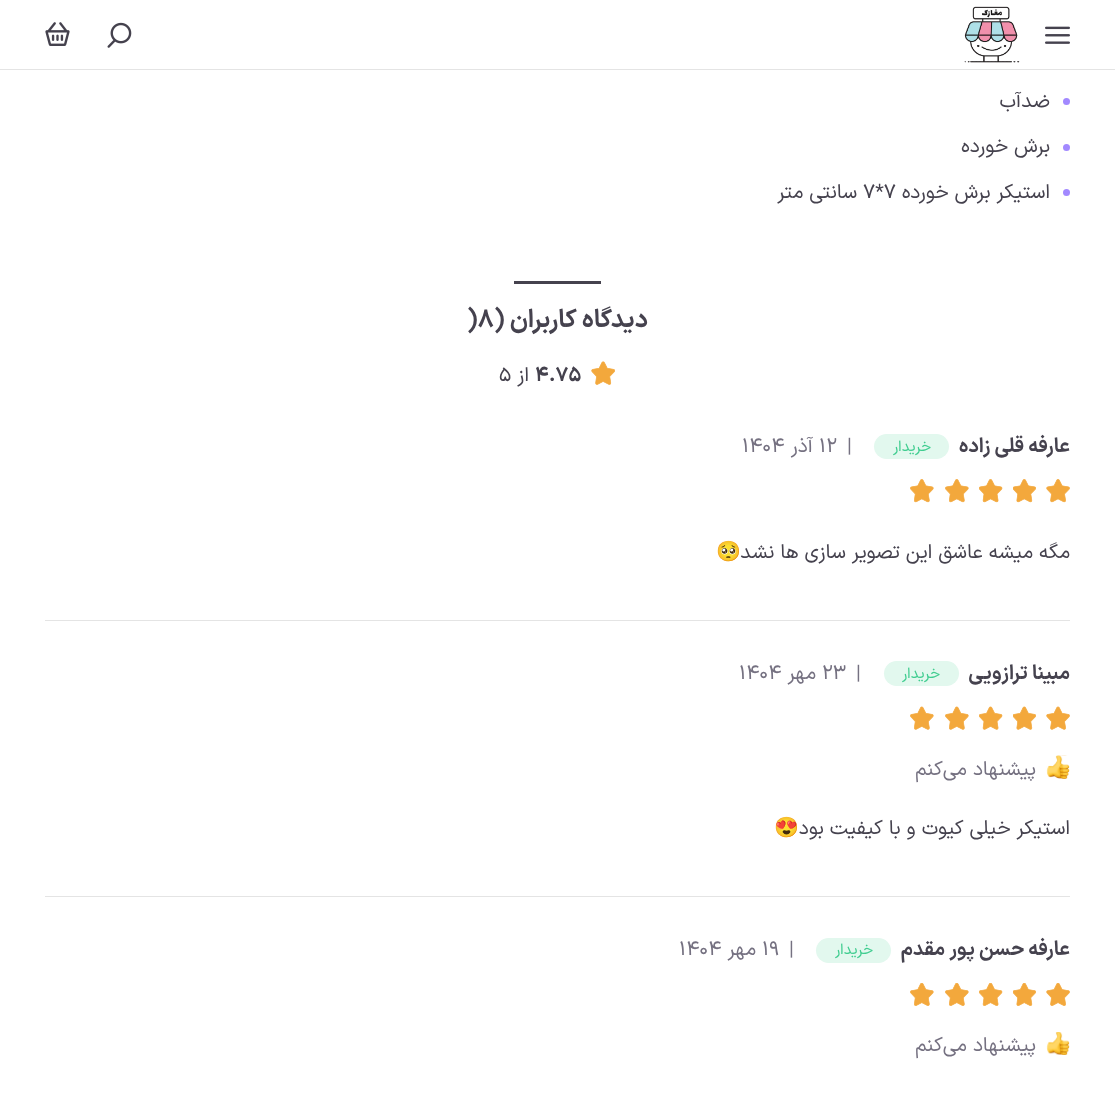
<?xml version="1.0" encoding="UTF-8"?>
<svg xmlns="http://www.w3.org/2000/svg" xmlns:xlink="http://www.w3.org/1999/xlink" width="1115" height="1099">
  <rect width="100%" height="100%" fill="#ffffff" />
  <rect y="69" width="1115" height="1" fill="#e4e4e4" />
  <image x="1045" y="26" width="25" height="18" xlink:href="image1.png" />
  <image x="964" y="6" width="56" height="57" xlink:href="image2.png" />
  <image x="107" y="22" width="25" height="26" xlink:href="image3.png" />
  <image x="45" y="22" width="25" height="24" xlink:href="image4.png" />
  <circle cx="1066.5" cy="101.5" r="3.5" fill="#a289ff" />
  <circle cx="1066.5" cy="147.5" r="3.5" fill="#a289ff" />
  <circle cx="1066.5" cy="192.5" r="3.5" fill="#a289ff" />
  <rect x="514" y="281" width="87" height="3" fill="#45424e" />
  <image x="591" y="361" width="24" height="24" xlink:href="image5.png" />
  <rect x="874" y="434" width="75" height="25" rx="12.5" fill="#e2f8ee" />
  <image x="1046" y="479" width="24" height="24" xlink:href="image6.png" />
  <image x="1013" y="479" width="23" height="24" xlink:href="image7.png" />
  <image x="979" y="479" width="24" height="24" xlink:href="image8.png" />
  <image x="945" y="479" width="24" height="24" xlink:href="image9.png" />
  <image x="910" y="479" width="24" height="24" xlink:href="image9.png" />
  <rect x="45" y="620" width="1025" height="1" fill="#e4e4e4" />
  <rect x="884" y="661" width="75" height="25" rx="12.5" fill="#e2f8ee" />
  <image x="1046" y="706" width="24" height="24" xlink:href="image10.png" />
  <image x="1013" y="706" width="23" height="24" xlink:href="image11.png" />
  <image x="979" y="706" width="24" height="24" xlink:href="image12.png" />
  <image x="945" y="706" width="24" height="24" xlink:href="image13.png" />
  <image x="910" y="706" width="24" height="24" xlink:href="image13.png" />
  <image x="1046" y="755" width="24" height="24" xlink:href="image14.png" />
  <rect x="45" y="896" width="1025" height="1" fill="#e4e4e4" />
  <rect x="816" y="938" width="75" height="25" rx="12.5" fill="#e2f8ee" />
  <image x="1046" y="983" width="24" height="23" xlink:href="image15.png" />
  <image x="1013" y="983" width="23" height="23" xlink:href="image16.png" />
  <image x="979" y="983" width="24" height="23" xlink:href="image17.png" />
  <image x="945" y="983" width="24" height="23" xlink:href="image18.png" />
  <image x="910" y="983" width="24" height="23" xlink:href="image18.png" />
  <image x="1046" y="1032" width="24" height="23" xlink:href="image19.png" />
  <text x="1050" y="107" style="font-family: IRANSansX; font-size: 20px; direction: rtl; fill: #45424e">ضدآب</text>
  <text x="1050" y="152" style="font-family: IRANSansX; font-size: 20px; direction: rtl; fill: #45424e">برش خورده</text>
  <text x="1050" y="198" style="font-family: IRANSansX; font-size: 20px; direction: rtl; fill: #45424e">استیکر برش خورده</text>
  <text x="863" y="198" style="font-family: IRANSansX; font-size: 20px; fill: #45424e">۷*۷</text>
  <text x="857" y="198" style="font-family: IRANSansX; font-size: 20px; direction: rtl; fill: #45424e">سانتی متر</text>
  <text x="648" y="327" style="font-family: IRANSansX; font-size: 25px; font-weight: bold; direction: rtl; fill: #45424e">دیدگاه کاربران (</text>
  <text x="467" y="327" style="font-family: IRANSansX; font-size: 25px; font-weight: bold; fill: #45424e">)۸</text>
  <text x="535" y="381" style="font-family: IRANSansX; font-size: 20px; font-weight: bold; fill: #45424e">۴.۷۵</text>
  <text x="529" y="381" style="font-family: IRANSansX; font-size: 20px; direction: rtl; fill: #45424e">از</text>
  <text x="499" y="381" style="font-family: IRANSansX; font-size: 20px; fill: #45424e">۵</text>
  <text x="1070" y="452" style="font-family: IRANSansX; font-size: 20px; font-weight: bold; direction: rtl; fill: #45424e">عارفه قلی زاده</text>
  <text x="931" y="451" style="font-family: IRANSansX; font-size: 15px; direction: rtl; fill: #40cd90">خریدار</text>
  <text x="847" y="452" style="font-family: IRANSansX; font-size: 20px; fill: #757181">|</text>
  <text x="819" y="452" style="font-family: IRANSansX; font-size: 20px; fill: #757181">۱۲</text>
  <text x="813" y="452" style="font-family: IRANSansX; font-size: 20px; direction: rtl; fill: #757181">آذر</text>
  <text x="742" y="452" style="font-family: IRANSansX; font-size: 20px; fill: #757181">۱۴۰۴</text>
  <text x="1070" y="558" style="font-family: IRANSansX; font-size: 20px; direction: rtl; fill: #45424e">مگه میشه عاشق این تصویر سازی ها نشد</text>
  <text x="741" y="558" style="font-family: Noto Color Emoji; font-size: 20px; direction: rtl; fill: #45424e">🥺</text>
  <text x="1070" y="679" style="font-family: IRANSansX; font-size: 20px; font-weight: bold; direction: rtl; fill: #45424e">مبینا ترازویی</text>
  <text x="940" y="678" style="font-family: IRANSansX; font-size: 15px; direction: rtl; fill: #40cd90">خریدار</text>
  <text x="856" y="679" style="font-family: IRANSansX; font-size: 20px; fill: #757181">|</text>
  <text x="822" y="679" style="font-family: IRANSansX; font-size: 20px; fill: #757181">۲۳</text>
  <text x="816" y="679" style="font-family: IRANSansX; font-size: 20px; direction: rtl; fill: #757181">مهر</text>
  <text x="739" y="679" style="font-family: IRANSansX; font-size: 20px; fill: #757181">۱۴۰۴</text>
  <text x="1036" y="775" style="font-family: IRANSansX; font-size: 20px; direction: rtl; fill: #757181">پیشنهاد می‌کنم</text>
  <text x="1070" y="834" style="font-family: IRANSansX; font-size: 20px; direction: rtl; fill: #45424e">استیکر خیلی کیوت و با کیفیت بود</text>
  <text x="799" y="834" style="font-family: Noto Color Emoji; font-size: 20px; direction: rtl; fill: #45424e">😍</text>
  <text x="1070" y="955" style="font-family: IRANSansX; font-size: 20px; font-weight: bold; direction: rtl; fill: #45424e">عارفه حسن پور مقدم</text>
  <text x="873" y="954" style="font-family: IRANSansX; font-size: 15px; direction: rtl; fill: #40cd90">خریدار</text>
  <text x="789" y="955" style="font-family: IRANSansX; font-size: 20px; fill: #757181">|</text>
  <text x="762" y="955" style="font-family: IRANSansX; font-size: 20px; fill: #757181">۱۹</text>
  <text x="756" y="955" style="font-family: IRANSansX; font-size: 20px; direction: rtl; fill: #757181">مهر</text>
  <text x="679" y="955" style="font-family: IRANSansX; font-size: 20px; fill: #757181">۱۴۰۴</text>
  <text x="1036" y="1051" style="font-family: IRANSansX; font-size: 20px; direction: rtl; fill: #757181">پیشنهاد می‌کنم</text>
</svg>
